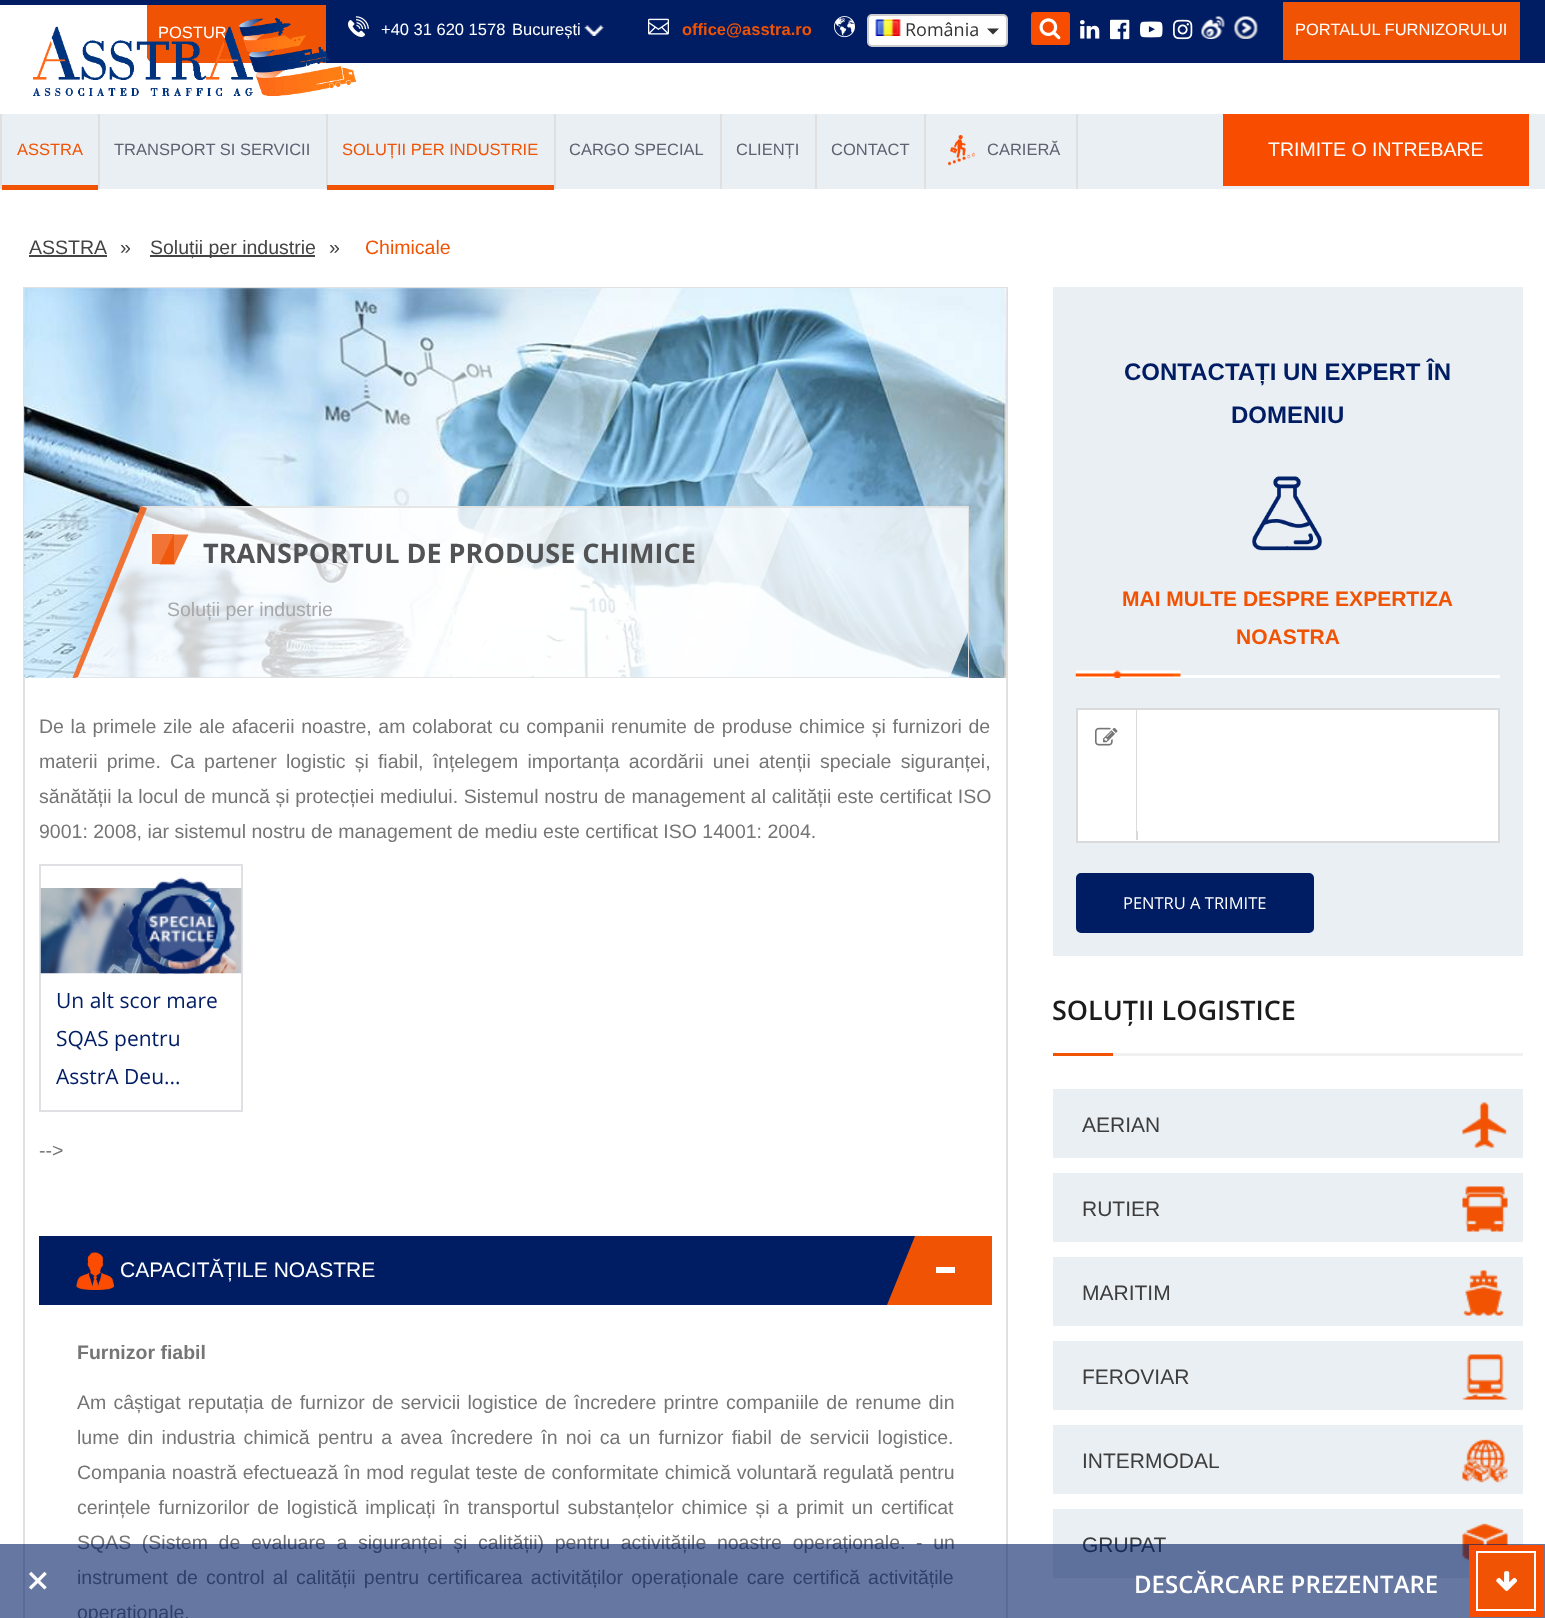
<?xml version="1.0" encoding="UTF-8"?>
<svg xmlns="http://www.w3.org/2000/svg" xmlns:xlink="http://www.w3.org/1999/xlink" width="1545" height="1618">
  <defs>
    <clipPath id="clip1"><rect x="62" y="506" width="907" height="172" /></clipPath>
    <clipPath id="clip2"><rect x="39" y="1236" width="953" height="69" /></clipPath>
  </defs>
  <rect width="100%" height="100%" fill="#ffffff" />
  <rect width="1545" height="5" fill="#001d64" />
  <path d="M 147 5 h 1376 v 58 h -1368 c -4.5 0 -8 -3.5 -8 -8 z" fill="#001d64" />
  <path d="M 147 5 h 179 v 58 h -171 c -4.5 0 -8 -3.5 -8 -8 z" fill="#f05304" />
  <image x="348" y="16" width="21" height="22" xlink:href="image2.png" />
  <image x="584" y="25" width="20" height="11" xlink:href="image3.png" />
  <image x="648" y="18" width="21" height="17" xlink:href="image4.png" />
  <image x="834" y="16" width="21" height="22" xlink:href="image5.png" />
  <rect x="868" y="15" width="139" height="31" rx="4" fill="#ffffff" stroke="#cccccc" stroke-width="2" />
  <image x="875" y="19" width="26" height="17" xlink:href="image6.png" />
  <path d="M 987 28.5 h 12 l -6 6 z" fill="#333333" />
  <rect x="1031" y="12" width="39" height="33" rx="3" fill="#f84c00" />
  <image x="1039" y="18" width="22" height="22" xlink:href="image7.png" />
  <image x="1080" y="20" width="20" height="19" xlink:href="image8.png" />
  <image x="1110" y="19" width="20" height="21" xlink:href="image9.png" />
  <image x="1140" y="21" width="23" height="17" xlink:href="image10.png" />
  <image x="1173" y="19" width="20" height="21" xlink:href="image11.png" />
  <image x="1201" y="16" width="24" height="23" xlink:href="image12.png" />
  <image x="1234" y="16" width="24" height="23" xlink:href="image13.png" />
  <rect x="1283" y="2" width="237" height="58" fill="#f05304" />
  <rect x="1523" y="5" width="22" height="58" fill="#001d64" />
  <rect x="2" y="114" width="1543" height="75" fill="#eaeff3" />
  <rect x="98" y="114" width="2" height="75" fill="#e0e0e0" />
  <rect y="114" width="2" height="75" fill="#e0e0e0" />
  <rect x="2" y="185" width="96" height="5" fill="#f05304" />
  <rect x="326" y="114" width="2" height="75" fill="#e0e0e0" />
  <rect x="554" y="114" width="2" height="75" fill="#e0e0e0" />
  <rect x="327" y="185" width="227" height="5" fill="#f05304" />
  <rect x="720" y="114" width="2" height="75" fill="#e0e0e0" />
  <rect x="815" y="114" width="2" height="75" fill="#e0e0e0" />
  <rect x="924" y="114" width="2" height="75" fill="#e0e0e0" />
  <rect x="1076" y="114" width="2" height="75" fill="#e0e0e0" />
  <image x="948" y="135" width="27" height="31" xlink:href="image14.png" />
  <rect x="1223" y="114" width="306" height="72" fill="#f84c00" />
  <rect x="29" y="255" width="78" height="2" fill="#444444" />
  <rect x="150" y="255" width="165" height="2" fill="#444444" />
  <rect x="24" y="288" width="983" height="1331" fill="none" stroke="#dee0e3" stroke-width="2" />
  <image x="24" y="288" width="983" height="390" xlink:href="image15.png" />
  <g clip-path="url(#clip1)">
    <path d="M 141 506 h 878 l -70 173 h -877 z" fill="#ffffff" fill-opacity="0.8" />
    <path d="M 141 506 h 878 l -1 2 h -871 z" fill="#e0e0e0" fill-opacity="0.8" />
    <path d="M 949 679 h -877 l 6 -2 h 872 z" fill="#e0e0e0" fill-opacity="0.8" />
    <path d="M 72 679 l 69 -173 l 6 2 l -69 169 z" fill="#f05304" fill-opacity="0.8" />
  </g>
  <rect x="152" y="534" width="22" height="30" fill="#f05304" fill-opacity="0.8" />
  <path d="M 173.5 534.5 h 15 l -14 30 h -15 z" fill="#f05304" fill-opacity="0.8" />
  <rect x="923" y="677" width="45" height="1" fill="#e0e0e0" fill-opacity="0.8" />
  <rect x="968" y="506" width="1" height="172" fill="#e0e0e0" />
  <rect x="40" y="865" width="202" height="246" fill="none" stroke="#dee0e3" stroke-width="2" />
  <image x="40" y="888" width="202" height="86" xlink:href="image17.png" />
  <image x="127" y="877" width="109" height="97" xlink:href="image16.png" />
  <rect x="39" y="1236" width="876" height="69" fill="#001d64" />
  <image x="76" y="1252" width="38" height="38" xlink:href="image18.png" />
  <g clip-path="url(#clip2)">
    <path d="M 915 1236 h 112 l -27 69 h -113 z" fill="#f05304" />
  </g>
  <rect x="936" y="1267" width="19" height="6" fill="#ffffff" />
  <rect x="1053" y="287" width="470" height="669" fill="#eaeff3" />
  <image x="1252" y="476" width="70" height="75" xlink:href="image19.png" />
  <rect x="1180" y="675" width="320" height="3" fill="#ffffff" />
  <image x="1075" y="670" width="106" height="8" xlink:href="image20.png" />
  <rect x="1077" y="709" width="422" height="133" fill="#ffffff" stroke="#dadada" stroke-width="2" />
  <rect x="1136" y="710" width="2" height="130" fill="#dadada" />
  <image x="1095" y="727" width="23" height="19" xlink:href="image21.png" />
  <rect x="1137" y="710" width="1" height="121" fill="#ffffff" />
  <rect x="1077.5" y="874.5" width="235" height="57" rx="3.5" fill="#001d64" stroke="#001d64" stroke-width="3" />
  <rect x="1053" y="1053" width="60" height="3" fill="#f05304" />
  <rect x="1113" y="1053" width="410" height="3" fill="#f1f1f1" />
  <rect x="1053" y="1089" width="470" height="69" fill="#eaeff3" />
  <image x="1462" y="1102" width="45" height="46" xlink:href="image22.png" />
  <rect x="1053" y="1173" width="470" height="69" fill="#eaeff3" />
  <image x="1462" y="1186" width="46" height="46" xlink:href="image23.png" />
  <rect x="1053" y="1257" width="470" height="69" fill="#eaeff3" />
  <image x="1463" y="1270" width="41" height="46" xlink:href="image24.png" />
  <rect x="1053" y="1341" width="470" height="69" fill="#eaeff3" />
  <image x="1462" y="1354" width="46" height="46" xlink:href="image25.png" />
  <rect x="1053" y="1425" width="470" height="69" fill="#eaeff3" />
  <image x="1462" y="1439" width="46" height="44" xlink:href="image26.png" />
  <rect x="1053" y="1509" width="470" height="69" fill="#eaeff3" />
  <image x="1462" y="1523" width="46" height="38" xlink:href="image27.png" />
  <text x="158" y="38" style="font-family: Liberation Sans; font-size: 16.5px; fill: #ffffff">POSTUR</text>
  <image x="33" y="18" width="323" height="78" xlink:href="image1.png" />
  <text x="381" y="35" style="font-family: Liberation Sans; font-size: 16.5px; fill: #ffffff">+40 31 620 1578</text>
  <text x="512" y="35" style="font-family: Liberation Sans; font-size: 16.5px; fill: #ffffff">București</text>
  <text x="682" y="35" style="font-family: Liberation Sans; font-size: 16.5px; font-weight: bold; fill: #f05304">office@asstra.ro</text>
  <text x="905" y="36" style="font-family: Open Sans; font-size: 18px; fill: #333333">România</text>
  <text x="1295" y="35" style="font-family: Liberation Sans; font-size: 16.5px; fill: #ffffff">PORTALUL FURNIZORULUI</text>
  <text x="17" y="155" style="font-family: Liberation Sans; font-size: 16.5px; fill: #f05304">ASSTRA</text>
  <text x="114" y="155" style="font-family: Liberation Sans; font-size: 16.5px; fill: #5f6171">TRANSPORT SI SERVICII</text>
  <text x="342" y="155" style="font-family: Liberation Sans; font-size: 16.5px; fill: #f05304">SOLUȚII PER INDUSTRIE</text>
  <text x="569" y="155" style="font-family: Liberation Sans; font-size: 16.5px; fill: #5f6171">CARGO SPECIAL</text>
  <text x="736" y="155" style="font-family: Liberation Sans; font-size: 16.5px; fill: #5f6171">CLIENȚI</text>
  <text x="831" y="155" style="font-family: Liberation Sans; font-size: 16.5px; fill: #5f6171">CONTACT</text>
  <text x="987" y="155" style="font-family: Liberation Sans; font-size: 16.5px; fill: #5f6171">СARIERĂ</text>
  <text x="1268" y="156" style="font-family: Liberation Sans; font-size: 19.5px; fill: #ffffff">TRIMITE O INTREBARE</text>
  <text x="29" y="254" style="font-family: Liberation Sans; font-size: 19.5px; fill: #444444">ASSTRA</text>
  <text x="120" y="254" style="font-family: Liberation Sans; font-size: 19.5px; fill: #444444">»</text>
  <text x="150" y="254" style="font-family: Liberation Sans; font-size: 19.5px; fill: #444444">Soluții per industrie</text>
  <text x="329" y="254" style="font-family: Liberation Sans; font-size: 19.5px; fill: #444444">»</text>
  <text x="365" y="254" style="font-family: Liberation Sans; font-size: 19.5px; fill: #f05304">Chimicale</text>
  <text x="203" y="563" style="font-family: Open Sans; font-size: 27px; font-weight: bold; fill: #525354">TRANSPORTUL DE PRODUSE CHIMICE</text>
  <text x="167" y="616" style="font-family: Liberation Sans; font-size: 19.5px; fill: #a7a8a9">Soluții per industrie</text>
  <text x="39" y="733" word-spacing="1.25" style="font-family: Liberation Sans; font-size: 19.5px; fill: #757575">De la primele zile ale afacerii noastre, am colaborat cu companii renumite de produse chimice și furnizori de</text>
  <text x="39" y="768" word-spacing="3.75" style="font-family: Liberation Sans; font-size: 19.5px; fill: #757575">materii prime. Ca partener logistic și fiabil, înțelegem importanța acordării unei atenții speciale siguranței,</text>
  <text x="39" y="803" word-spacing="0.25" style="font-family: Liberation Sans; font-size: 19.5px; fill: #757575">sănătății la locul de muncă și protecției mediului. Sistemul nostru de management al calității este certificat ISO</text>
  <text x="39" y="838" style="font-family: Liberation Sans; font-size: 19.5px; fill: #757575">9001: 2008, iar sistemul nostru de management de mediu este certificat ISO 14001: 2004.</text>
  <text x="56" y="1008" style="font-family: Open Sans; font-size: 21px; fill: #001d64">Un alt scor mare</text>
  <text x="56" y="1046" style="font-family: Open Sans; font-size: 21px; fill: #001d64">SQAS pentru</text>
  <text x="56" y="1084" style="font-family: Open Sans; font-size: 21px; fill: #001d64">AsstrA Deu...</text>
  <text x="39" y="1157" style="font-family: Liberation Sans; font-size: 19.5px; fill: #757575">--&gt;</text>
  <text x="120" y="1277" style="font-family: Liberation Sans; font-size: 21px; fill: #ffffff">CAPACITĂȚILE NOASTRE</text>
  <text x="77" y="1359" style="font-family: Liberation Sans; font-size: 19.5px; font-weight: bold; fill: #757575">Furnizor fiabil</text>
  <text x="77" y="1409" word-spacing="1.75" style="font-family: Liberation Sans; font-size: 19.5px; fill: #757575">Am câștigat reputația de furnizor de servicii logistice de încredere printre companiile de renume din</text>
  <text x="77" y="1444" word-spacing="2.75" style="font-family: Liberation Sans; font-size: 19.5px; fill: #757575">lume din industria chimică pentru a avea încredere în noi ca un furnizor fiabil de servicii logistice.</text>
  <text x="77" y="1479" word-spacing="0.5" style="font-family: Liberation Sans; font-size: 19.5px; fill: #757575">Compania noastră efectuează în mod regulat teste de conformitate chimică voluntară regulată pentru</text>
  <text x="77" y="1514" word-spacing="2.4" style="font-family: Liberation Sans; font-size: 19.5px; fill: #757575">cerințele furnizorilor de logistică implicați în transportul substanțelor chimice și a primit un certificat</text>
  <text x="77" y="1549" word-spacing="5.25" style="font-family: Liberation Sans; font-size: 19.5px; fill: #757575">SQAS (Sistem de evaluare a siguranței și calității) pentru activitățile noastre operaționale. - un</text>
  <text x="77" y="1584" word-spacing="2.75" style="font-family: Liberation Sans; font-size: 19.5px; fill: #757575">instrument de control al calității pentru certificarea activităților operaționale care certifică activitățile</text>
  <text x="77" y="1619" style="font-family: Liberation Sans; font-size: 19.5px; fill: #757575">operaționale.</text>
  <text x="1124" y="380" style="font-family: Liberation Sans; font-size: 24px; font-weight: bold; fill: #001d64">CONTACTAȚI UN EXPERT ÎN</text>
  <text x="1231" y="423" style="font-family: Liberation Sans; font-size: 24px; font-weight: bold; fill: #001d64">DOMENIU</text>
  <text x="1122" y="606" style="font-family: Liberation Sans; font-size: 21px; font-weight: bold; fill: #f05304">MAI MULTE DESPRE EXPERTIZA</text>
  <text x="1236" y="644" style="font-family: Liberation Sans; font-size: 21px; font-weight: bold; fill: #f05304">NOASTRA</text>
  <text x="1123" y="909" style="font-family: Open Sans; font-size: 16.5px; fill: #ffffff">PENTRU A TRIMITE</text>
  <text x="1052" y="1020" style="font-family: Open Sans; font-size: 27px; font-weight: 600; fill: #1b1b1b">SOLUȚII LOGISTICE</text>
  <text x="1082" y="1132" style="font-family: Liberation Sans; font-size: 21px; fill: #3d3d3d">AERIAN</text>
  <text x="1082" y="1216" style="font-family: Liberation Sans; font-size: 21px; fill: #3d3d3d">RUTIER</text>
  <text x="1082" y="1300" style="font-family: Liberation Sans; font-size: 21px; fill: #3d3d3d">MARITIM</text>
  <text x="1082" y="1384" style="font-family: Liberation Sans; font-size: 21px; fill: #3d3d3d">FEROVIAR</text>
  <text x="1082" y="1468" style="font-family: Liberation Sans; font-size: 21px; fill: #3d3d3d">INTERMODAL</text>
  <text x="1082" y="1552" style="font-family: Liberation Sans; font-size: 21px; fill: #3d3d3d">GRUPAT</text>
  <rect y="1544" width="1545" height="74" fill="#001d64" fill-opacity="0.6" />
  <text x="18" y="1582" transform="rotate(45 18 1582)" style="font-family: Liberation Sans; font-size: 45px; fill: #ffffff">+</text>
  <rect x="1469" y="1545" width="75" height="72" fill="#f84c00" />
  <text x="1134" y="1593" style="font-family: Open Sans; font-size: 24px; font-weight: 600; fill: #ffffff">DESCĂRCARE PREZENTARE</text>
  <rect x="1477" y="1552" width="58" height="58" fill="#f05304" stroke="#ffffff" stroke-width="2" />
  <image x="1496" y="1571" width="22" height="20" xlink:href="image28.png" />
</svg>
